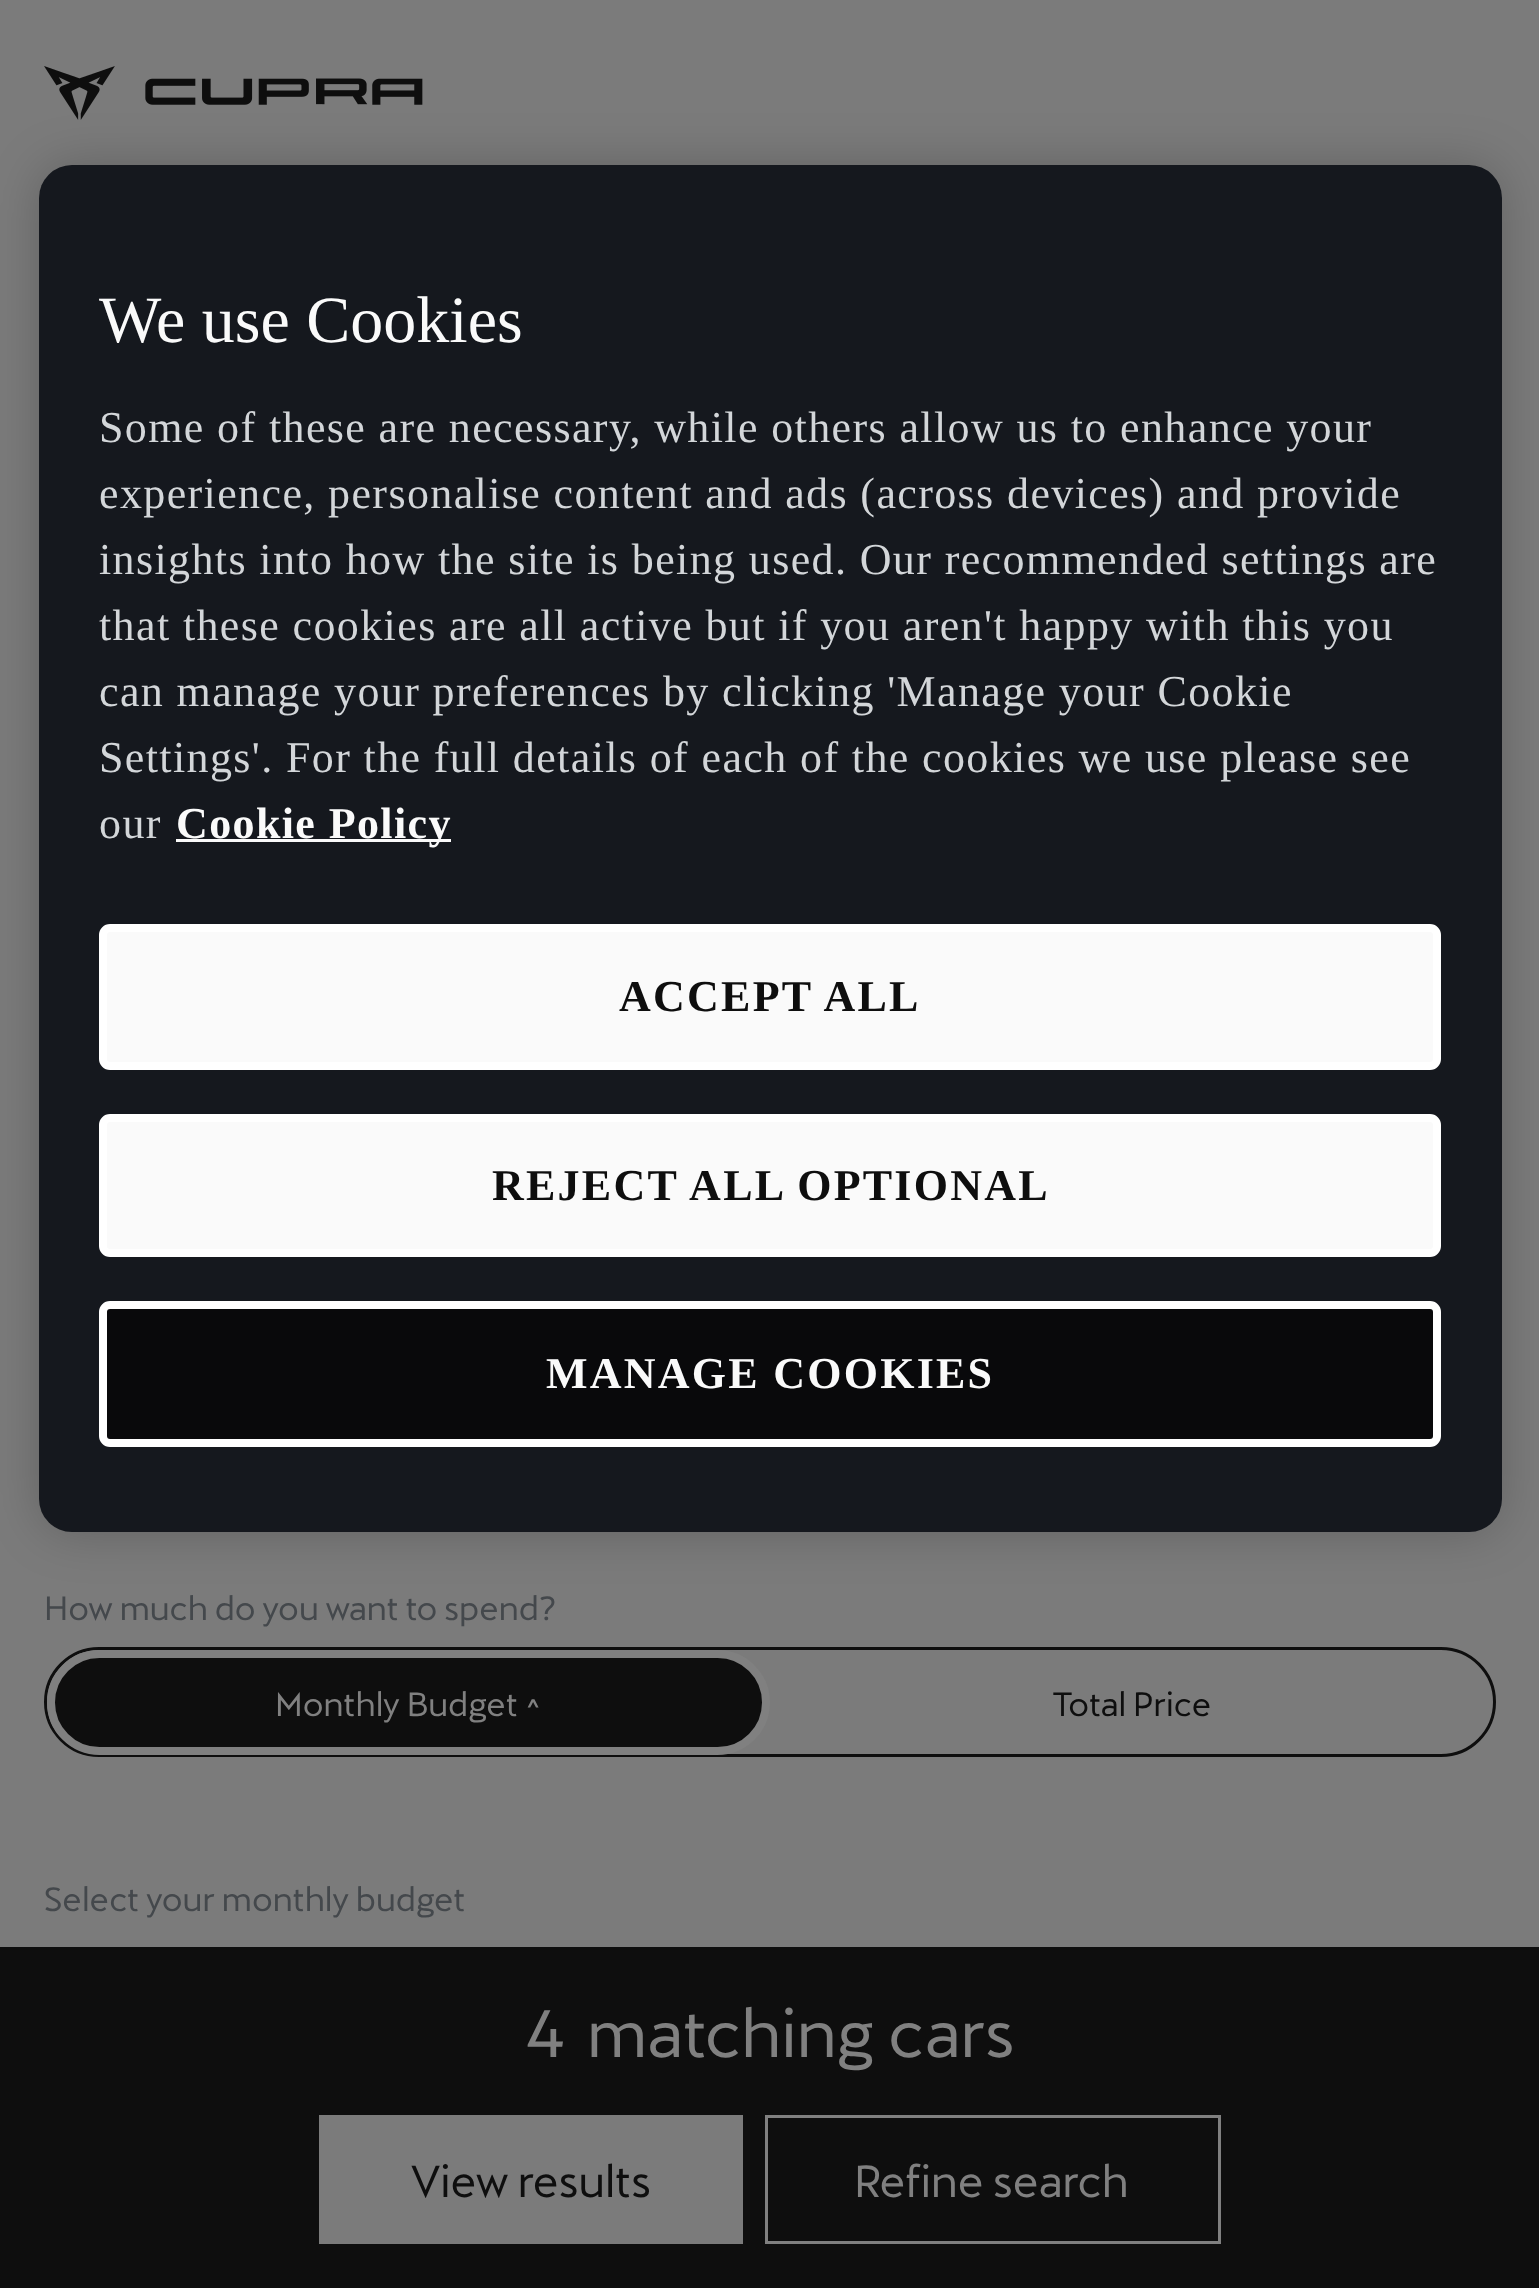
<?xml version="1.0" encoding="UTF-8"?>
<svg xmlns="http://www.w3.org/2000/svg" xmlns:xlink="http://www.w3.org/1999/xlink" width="1539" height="2288">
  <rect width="100%" height="100%" fill="#7b7b7b" />
  <image x="44" y="66" width="379" height="54" xlink:href="image1.png" />
  <rect x="39" y="165" width="1463" height="1367" rx="33" fill="#000000" fill-opacity="0.2" filter="blur(25px)" />
  <rect x="39" y="165" width="1463" height="1367" rx="33" fill="#15181e" />
  <rect x="176" y="839" width="275" height="3" fill="#fafafa" />
  <rect x="103" y="928" width="1334" height="138" rx="7" fill="#fafafa" stroke="#ffffff" stroke-width="8" />
  <rect x="103" y="1118" width="1334" height="135" rx="7" fill="#fafafa" stroke="#ffffff" stroke-width="8" />
  <rect x="103" y="1305" width="1334" height="138" rx="7" fill="#09090b" stroke="#ffffff" stroke-width="8" />
  <rect x="45.5" y="1648.5" width="1449" height="107" rx="53.5" fill="none" stroke="#0e0e0e" stroke-width="3" />
  <rect x="51" y="1654" width="715" height="97" rx="48.5" fill="#0e0e0e" stroke="#808080" stroke-width="8" />
  <rect y="1947" width="1539" height="341" fill="#0e0e0e" />
  <rect x="319" y="2115" width="424" height="129" fill="#7b7b7b" />
  <rect x="766.5" y="2116.5" width="453" height="126" fill="none" stroke="#808080" stroke-width="3" />
  <text x="99" y="342" style="font-family: Liberation Serif; font-size: 66px; fill: #fafafa">We use Cookies</text>
  <text x="99" y="442" style="font-family: Liberation Serif; font-size: 44px; letter-spacing: 1.38px; fill: #d3d6d9">Some of these are necessary, while others allow us to enhance your</text>
  <text x="99" y="508" style="font-family: Liberation Serif; font-size: 44px; letter-spacing: 1.38px; fill: #d3d6d9">experience, personalise content and ads (across devices) and provide</text>
  <text x="99" y="574" style="font-family: Liberation Serif; font-size: 44px; letter-spacing: 1.38px; fill: #d3d6d9">insights into how the site is being used. Our recommended settings are</text>
  <text x="99" y="640" style="font-family: Liberation Serif; font-size: 44px; letter-spacing: 1.38px; fill: #d3d6d9">that these cookies are all active but if you aren't happy with this you</text>
  <text x="99" y="706" style="font-family: Liberation Serif; font-size: 44px; letter-spacing: 1.38px; fill: #d3d6d9">can manage your preferences by clicking 'Manage your Cookie</text>
  <text x="99" y="772" style="font-family: Liberation Serif; font-size: 44px; letter-spacing: 1.38px; fill: #d3d6d9">Settings'. For the full details of each of the cookies we use please see</text>
  <text x="99" y="838" style="font-family: Liberation Serif; font-size: 44px; letter-spacing: 1.38px; fill: #d3d6d9">our</text>
  <text x="176" y="838" style="font-family: Liberation Serif; font-size: 44px; font-weight: bold; letter-spacing: 1.38px; fill: #fafafa">Cookie Policy</text>
  <text x="619" y="1011" style="font-family: Liberation Serif; font-size: 44px; font-weight: bold; letter-spacing: 2.25px; fill: #0e0e0e">ACCEPT ALL</text>
  <text x="492" y="1200" style="font-family: Liberation Serif; font-size: 44px; font-weight: bold; letter-spacing: 2.25px; fill: #0e0e0e">REJECT ALL OPTIONAL</text>
  <text x="546" y="1388" style="font-family: Liberation Serif; font-size: 44px; font-weight: bold; letter-spacing: 2.25px; fill: #fafafa">MANAGE COOKIES</text>
  <text x="44" y="1620" style="font-family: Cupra; font-size: 33px; fill: #44484c">How much do you want to spend?</text>
  <text x="275" y="1716" style="font-family: Cupra; font-size: 33px; fill: #808080">Monthly Budget ^</text>
  <text x="1052" y="1716" style="font-family: Cupra; font-size: 33px; fill: #0e0e0e">Total Price</text>
  <text x="44" y="1911" style="font-family: Cupra; font-size: 33px; fill: #44484c">Select your monthly budget</text>
  <text x="525" y="2057" style="font-family: Cupra; font-size: 66px; fill: #808080">4</text>
  <text x="587" y="2057" style="font-family: Cupra; font-size: 66px; fill: #808080">matching cars</text>
  <text x="411" y="2197" style="font-family: Cupra; font-size: 44px; fill: #0e0e0e">View results</text>
  <text x="854" y="2197" style="font-family: Cupra; font-size: 44px; fill: #808080">Refine search</text>
</svg>
